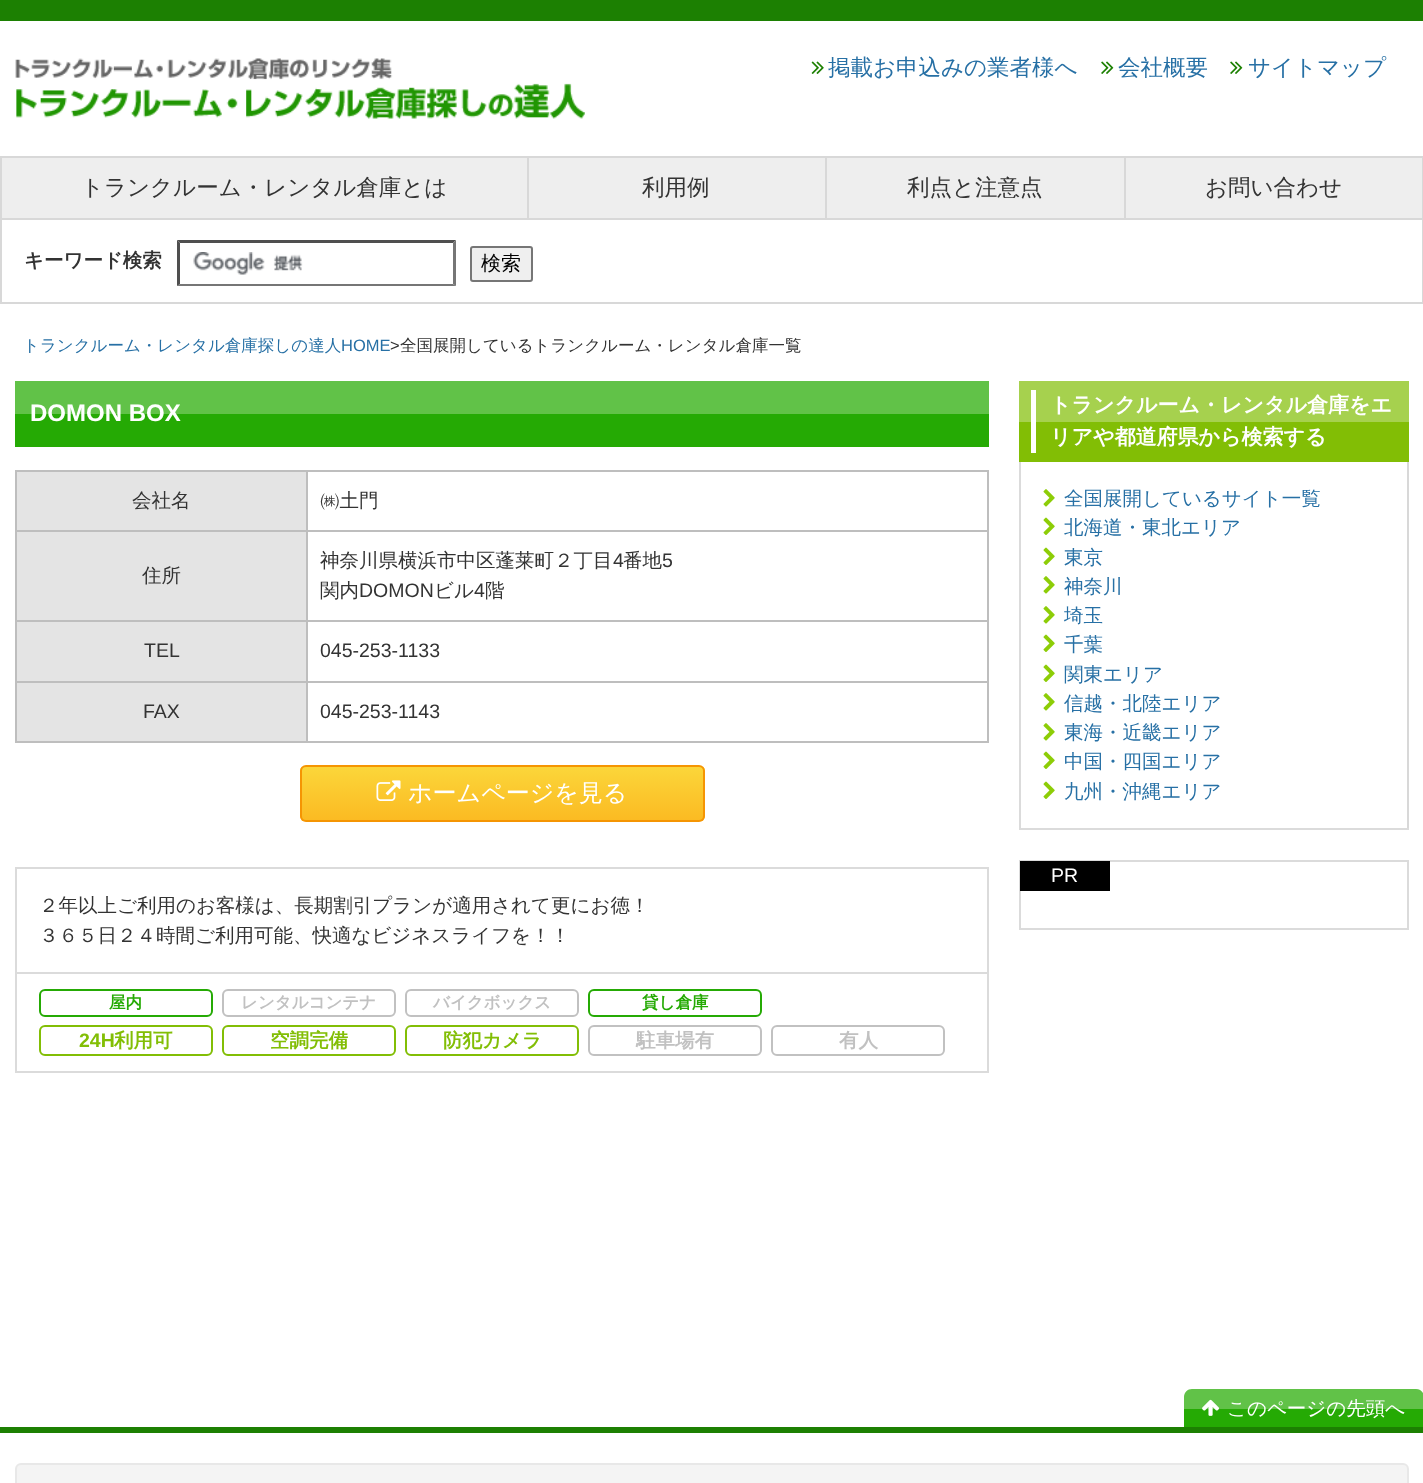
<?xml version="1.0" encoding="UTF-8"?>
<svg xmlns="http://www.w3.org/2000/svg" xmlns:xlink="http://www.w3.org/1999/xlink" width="1423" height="1483">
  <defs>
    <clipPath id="clip1"><rect x="300" y="765" width="405" height="57" rx="6" /></clipPath>
    <linearGradient id="g1" gradientUnits="userSpaceOnUse" x1="503" y1="767" x2="503" y2="821"><stop offset="0" stop-color="#fbd63a" /><stop offset="1" stop-color="#fbba22" /></linearGradient>
  </defs>
  <rect width="100%" height="100%" fill="#ffffff" />
  <rect width="1423" height="21" fill="#1c8002" />
  <image x="15" y="58" width="570" height="61" xlink:href="image1.png" />
  <image x="811" y="61" width="13" height="13" xlink:href="image2.png" />
  <image x="1101" y="61" width="13" height="13" xlink:href="image3.png" />
  <image x="1230" y="61" width="13" height="13" xlink:href="image3.png" />
  <rect x="2" y="158" width="1420" height="60" fill="#eeeeee" />
  <rect y="156" width="1423" height="2" fill="#d8d8d8" />
  <rect y="218" width="1423" height="2" fill="#d8d8d8" />
  <rect y="158" width="2" height="60" fill="#d8d8d8" />
  <rect x="527" y="158" width="2" height="60" fill="#d8d8d8" />
  <rect x="825" y="158" width="2" height="60" fill="#d8d8d8" />
  <rect x="1124" y="158" width="2" height="60" fill="#d8d8d8" />
  <rect x="1422" y="158" width="1" height="60" fill="#d8d8d8" />
  <rect x="1422" y="219" width="1" height="84" fill="#d8d8d8" />
  <rect y="302" width="1423" height="2" fill="#d8d8d8" />
  <rect y="219" width="2" height="84" fill="#d8d8d8" />
  <image x="193" y="252" width="110" height="23" xlink:href="image4.png" />
  <path d="M 177 240 h 279 l -3 3 h -273 z" fill="#4f4f4f" />
  <path d="M 456 240 v 46 l -3 -2 v -41 z" fill="#767676" />
  <path d="M 456 286 h -279 l 3 -2 h 273 z" fill="#767676" />
  <path d="M 177 286 v -46 l 3 3 v 41 z" fill="#4f4f4f" />
  <rect x="471" y="247" width="61" height="34" rx="2" fill="#efefef" stroke="#767676" stroke-width="2" />
  <rect x="15" y="381" width="974" height="33" fill="#61c248" />
  <rect x="15" y="414" width="974" height="33" fill="#25aa04" />
  <rect x="15" y="470" width="974" height="2" fill="#bebebe" />
  <rect x="15" y="470" width="2" height="273" fill="#bebebe" />
  <rect x="17" y="472" width="289" height="58" fill="#e4e4e4" />
  <rect x="987" y="470" width="2" height="273" fill="#bebebe" />
  <rect x="306" y="741" width="683" height="2" fill="#bebebe" />
  <rect x="306" y="681" width="2" height="62" fill="#bebebe" />
  <rect x="306" y="681" width="683" height="2" fill="#bebebe" />
  <rect x="306" y="620" width="2" height="63" fill="#bebebe" />
  <rect x="306" y="620" width="683" height="2" fill="#bebebe" />
  <rect x="306" y="530" width="2" height="91" fill="#bebebe" />
  <rect x="306" y="530" width="683" height="2" fill="#bebebe" />
  <rect x="306" y="470" width="2" height="61" fill="#bebebe" />
  <rect x="15" y="530" width="293" height="2" fill="#bebebe" />
  <rect x="17" y="532" width="289" height="88" fill="#e4e4e4" />
  <rect x="15" y="620" width="293" height="2" fill="#bebebe" />
  <rect x="17" y="622" width="289" height="59" fill="#e4e4e4" />
  <rect x="15" y="681" width="293" height="2" fill="#bebebe" />
  <rect x="17" y="683" width="289" height="58" fill="#e4e4e4" />
  <rect x="15" y="741" width="293" height="2" fill="#bebebe" />
  <g clip-path="url(#clip1)">
    <rect x="300" y="767" width="405" height="54" fill="url(#g1)" />
  </g>
  <rect x="301" y="766" width="403" height="55" rx="5" fill="none" stroke="#f59503" stroke-width="2" />
  <image x="376" y="780" width="25" height="21" xlink:href="image5.png" />
  <rect x="16" y="868" width="972" height="204" fill="none" stroke="#dbdbdb" stroke-width="2" />
  <rect x="17" y="972" width="970" height="2" fill="#dbdbdb" />
  <rect x="40" y="990" width="172" height="26" rx="5" fill="none" stroke="#25aa04" stroke-width="2" />
  <rect x="223" y="990" width="172" height="26" rx="5" fill="none" stroke="#c1c1c1" stroke-width="2" />
  <rect x="406" y="990" width="172" height="26" rx="5" fill="none" stroke="#c1c1c1" stroke-width="2" />
  <rect x="589" y="990" width="172" height="26" rx="5" fill="none" stroke="#25aa04" stroke-width="2" />
  <rect x="40" y="1026" width="172" height="29" rx="5" fill="none" stroke="#82be05" stroke-width="2" />
  <rect x="223" y="1026" width="172" height="29" rx="5" fill="none" stroke="#82be05" stroke-width="2" />
  <rect x="406" y="1026" width="172" height="29" rx="5" fill="none" stroke="#82be05" stroke-width="2" />
  <rect x="589" y="1026" width="172" height="29" rx="5" fill="none" stroke="#c1c1c1" stroke-width="2" />
  <rect x="772" y="1026" width="172" height="29" rx="5" fill="none" stroke="#c1c1c1" stroke-width="2" />
  <rect x="1019" y="381" width="390" height="41" fill="#a6d14e" />
  <rect x="1019" y="422" width="390" height="40" fill="#82be05" />
  <rect x="1031" y="390" width="5" height="63" fill="#ffffff" />
  <rect x="1407" y="462" width="2" height="368" fill="#d8d8d8" />
  <rect x="1019" y="828" width="390" height="2" fill="#dbdbdb" />
  <rect x="1019" y="462" width="2" height="368" fill="#dbdbdb" />
  <image x="1043" y="489" width="12" height="18" xlink:href="image6.png" />
  <image x="1043" y="517" width="12" height="18" xlink:href="image7.png" />
  <image x="1043" y="547" width="12" height="18" xlink:href="image7.png" />
  <image x="1043" y="576" width="12" height="18" xlink:href="image6.png" />
  <image x="1043" y="606" width="12" height="18" xlink:href="image6.png" />
  <image x="1043" y="634" width="12" height="18" xlink:href="image7.png" />
  <image x="1043" y="664" width="12" height="18" xlink:href="image7.png" />
  <image x="1043" y="693" width="12" height="18" xlink:href="image6.png" />
  <image x="1043" y="723" width="12" height="18" xlink:href="image6.png" />
  <image x="1043" y="751" width="12" height="18" xlink:href="image7.png" />
  <image x="1043" y="781" width="12" height="18" xlink:href="image7.png" />
  <rect x="1020" y="861" width="388" height="68" fill="none" stroke="#dbdbdb" stroke-width="2" />
  <rect x="1020" y="861" width="90" height="30" fill="#000000" />
  <rect y="1427" width="1423" height="6" fill="#1c8002" />
  <path d="M 1192 1389 h 224 c 4.5 0 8 3.5 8 8 v 12 h -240 v -12 c 0 -4.5 3.5 -8 8 -8 z" fill="#61c248" />
  <rect x="1184" y="1409" width="239" height="18" fill="#25aa04" />
  <image x="1202" y="1399" width="17" height="17" xlink:href="image8.png" />
  <rect x="16" y="1464" width="1392" height="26" rx="5" fill="#f4f4f4" stroke="#e8e8e8" stroke-width="2" />
  <text x="828" y="75" style="font-family: WenQuanYi Zen Hei; font-size: 22.5px; font-weight: 500; fill: #2770a5">掲載お申込みの業者様へ</text>
  <text x="1118" y="75" style="font-family: WenQuanYi Zen Hei; font-size: 22.5px; font-weight: 500; fill: #2770a5">会社概要</text>
  <text x="1248" y="75" style="font-family: WenQuanYi Zen Hei; font-size: 22.5px; font-weight: 500; fill: #2770a5">サイトマップ</text>
  <text x="81" y="195" style="font-family: WenQuanYi Zen Hei; font-size: 22.5px; font-weight: 500; fill: #333333">トランクルーム・レンタル倉庫とは</text>
  <text x="642" y="195" style="font-family: WenQuanYi Zen Hei; font-size: 22.5px; font-weight: 500; fill: #333333">利用例</text>
  <text x="907" y="195" style="font-family: WenQuanYi Zen Hei; font-size: 22.5px; font-weight: 500; fill: #333333">利点と注意点</text>
  <text x="1205" y="195" style="font-family: WenQuanYi Zen Hei; font-size: 22.5px; font-weight: 500; fill: #333333">お問い合わせ</text>
  <text x="24" y="267" style="font-family: WenQuanYi Zen Hei; font-size: 19.5px; font-weight: bold; fill: #333333">キーワード検索</text>
  <text x="481" y="270" style="font-family: WenQuanYi Zen Hei; font-size: 20px; font-weight: 500; fill: #000000">検索</text>
  <text x="23" y="351" style="font-family: WenQuanYi Zen Hei; font-size: 16.5px; font-weight: 500; fill: #2770a5">トランクルーム・レンタル倉庫探しの達人</text>
  <text x="341" y="351" style="font-family: Liberation Sans; font-size: 16.5px; fill: #2770a5">HOME</text>
  <text x="390" y="351" style="font-family: Liberation Sans; font-size: 16.5px; fill: #333333">&gt;</text>
  <text x="400" y="351" style="font-family: WenQuanYi Zen Hei; font-size: 16.5px; font-weight: 500; fill: #333333">全国展開しているトランクルーム・レンタル倉庫一覧</text>
  <text x="30" y="421" style="font-family: Liberation Sans; font-size: 24px; font-weight: bold; fill: #ffffff">DOMON BOX</text>
  <text x="132" y="507" style="font-family: WenQuanYi Zen Hei; font-size: 19.5px; font-weight: 500; fill: #333333">会社名</text>
  <text x="320" y="507" style="font-family: WenQuanYi Zen Hei; font-size: 19.5px; font-weight: 500; fill: #333333">㈱土門</text>
  <text x="142" y="582" style="font-family: WenQuanYi Zen Hei; font-size: 19.5px; font-weight: 500; fill: #333333">住所</text>
  <text x="320" y="567" style="font-family: WenQuanYi Zen Hei; font-size: 19.5px; font-weight: 500; fill: #333333">神奈川県横浜市中区蓬莱町２丁目</text>
  <text x="613" y="567" style="font-family: Liberation Sans; font-size: 19.5px; fill: #333333">4</text>
  <text x="623" y="567" style="font-family: WenQuanYi Zen Hei; font-size: 19.5px; font-weight: 500; fill: #333333">番地</text>
  <text x="662" y="567" style="font-family: Liberation Sans; font-size: 19.5px; fill: #333333">5</text>
  <text x="320" y="597" style="font-family: WenQuanYi Zen Hei; font-size: 19.5px; font-weight: 500; fill: #333333">関内</text>
  <text x="359" y="597" style="font-family: Liberation Sans; font-size: 19.5px; fill: #333333">DOMON</text>
  <text x="434" y="597" style="font-family: WenQuanYi Zen Hei; font-size: 19.5px; font-weight: 500; fill: #333333">ビル</text>
  <text x="474" y="597" style="font-family: Liberation Sans; font-size: 19.5px; fill: #333333">4</text>
  <text x="485" y="597" style="font-family: WenQuanYi Zen Hei; font-size: 19.5px; font-weight: 500; fill: #333333">階</text>
  <text x="144" y="657" style="font-family: Liberation Sans; font-size: 19.5px; fill: #333333">TEL</text>
  <text x="320" y="657" style="font-family: Liberation Sans; font-size: 19.5px; fill: #333333">045-253-1133</text>
  <text x="143" y="718" style="font-family: Liberation Sans; font-size: 19.5px; fill: #333333">FAX</text>
  <text x="320" y="718" style="font-family: Liberation Sans; font-size: 19.5px; fill: #333333">045-253-1143</text>
  <text x="408" y="801" style="font-family: WenQuanYi Zen Hei; font-size: 24px; font-weight: 500; fill: #ffffff">ホームページを見る</text>
  <text x="39" y="912" style="font-family: WenQuanYi Zen Hei; font-size: 19.5px; font-weight: 500; fill: #333333">２年以上ご利用のお客様は、長期割引プランが適用されて更にお徳！</text>
  <text x="39" y="942" style="font-family: WenQuanYi Zen Hei; font-size: 19.5px; font-weight: 500; fill: #333333">３６５日２４時間ご利用可能、快適なビジネスライフを！！</text>
  <text x="109" y="1008" style="font-family: WenQuanYi Zen Hei; font-size: 16.5px; font-weight: bold; fill: #25aa04">屋内</text>
  <text x="241" y="1008" style="font-family: WenQuanYi Zen Hei; font-size: 16.5px; font-weight: bold; fill: #c1c1c1">レンタルコンテナ</text>
  <text x="433" y="1008" style="font-family: WenQuanYi Zen Hei; font-size: 16.5px; font-weight: bold; fill: #c1c1c1">バイクボックス</text>
  <text x="642" y="1008" style="font-family: WenQuanYi Zen Hei; font-size: 16.5px; font-weight: bold; fill: #25aa04">貸し倉庫</text>
  <text x="79" y="1047" style="font-family: Liberation Sans; font-size: 19.5px; font-weight: bold; fill: #82be05">24H</text>
  <text x="114" y="1047" style="font-family: WenQuanYi Zen Hei; font-size: 19.5px; font-weight: bold; fill: #82be05">利用可</text>
  <text x="270" y="1047" style="font-family: WenQuanYi Zen Hei; font-size: 19.5px; font-weight: bold; fill: #82be05">空調完備</text>
  <text x="443" y="1047" style="font-family: WenQuanYi Zen Hei; font-size: 19.5px; font-weight: bold; fill: #82be05">防犯カメラ</text>
  <text x="636" y="1047" style="font-family: WenQuanYi Zen Hei; font-size: 19.5px; font-weight: bold; fill: #c1c1c1">駐車場有</text>
  <text x="839" y="1047" style="font-family: WenQuanYi Zen Hei; font-size: 19.5px; font-weight: bold; fill: #c1c1c1">有人</text>
  <text x="1050" y="412" style="font-family: WenQuanYi Zen Hei; font-size: 21px; font-weight: bold; fill: #ffffff">トランクルーム・レンタル倉庫をエ</text>
  <text x="1050" y="444" style="font-family: WenQuanYi Zen Hei; font-size: 21px; font-weight: bold; fill: #ffffff">リアや都道府県から検索する</text>
  <text x="1064" y="505" style="font-family: WenQuanYi Zen Hei; font-size: 19.5px; font-weight: 500; fill: #2770a5">全国展開しているサイト一覧</text>
  <text x="1064" y="534" style="font-family: WenQuanYi Zen Hei; font-size: 19.5px; font-weight: 500; fill: #2770a5">北海道・東北エリア</text>
  <text x="1064" y="564" style="font-family: WenQuanYi Zen Hei; font-size: 19.5px; font-weight: 500; fill: #2770a5">東京</text>
  <text x="1064" y="593" style="font-family: WenQuanYi Zen Hei; font-size: 19.5px; font-weight: 500; fill: #2770a5">神奈川</text>
  <text x="1064" y="622" style="font-family: WenQuanYi Zen Hei; font-size: 19.5px; font-weight: 500; fill: #2770a5">埼玉</text>
  <text x="1064" y="651" style="font-family: WenQuanYi Zen Hei; font-size: 19.5px; font-weight: 500; fill: #2770a5">千葉</text>
  <text x="1064" y="681" style="font-family: WenQuanYi Zen Hei; font-size: 19.5px; font-weight: 500; fill: #2770a5">関東エリア</text>
  <text x="1064" y="710" style="font-family: WenQuanYi Zen Hei; font-size: 19.5px; font-weight: 500; fill: #2770a5">信越・北陸エリア</text>
  <text x="1064" y="739" style="font-family: WenQuanYi Zen Hei; font-size: 19.5px; font-weight: 500; fill: #2770a5">東海・近畿エリア</text>
  <text x="1064" y="768" style="font-family: WenQuanYi Zen Hei; font-size: 19.5px; font-weight: 500; fill: #2770a5">中国・四国エリア</text>
  <text x="1064" y="798" style="font-family: WenQuanYi Zen Hei; font-size: 19.5px; font-weight: 500; fill: #2770a5">九州・沖縄エリア</text>
  <text x="1051" y="882" style="font-family: Liberation Sans; font-size: 19.5px; fill: #ffffff">PR</text>
  <text x="1227" y="1415" style="font-family: WenQuanYi Zen Hei; font-size: 19.5px; font-weight: 500; fill: #ffffff">このページの先頭へ</text>
</svg>
